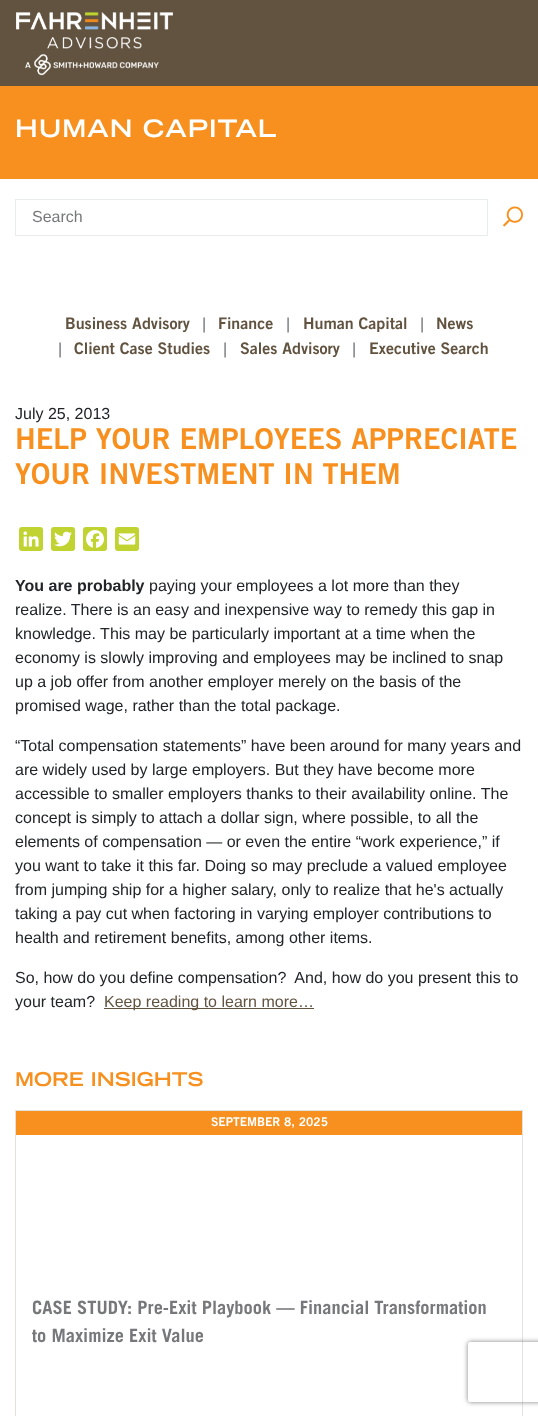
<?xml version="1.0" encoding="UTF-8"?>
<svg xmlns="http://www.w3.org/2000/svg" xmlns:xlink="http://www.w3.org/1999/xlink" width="538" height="1416">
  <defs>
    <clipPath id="clip1"><path d="M 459 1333 h 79 v 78 h -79 z m 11 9 h 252 c 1 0 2 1 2 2 v 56 c 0 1 -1 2 -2 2 h -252 c -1 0 -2 -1 -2 -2 v -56 c 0 -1 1 -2 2 -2 z" clip-rule="evenodd" /></clipPath>
  </defs>
  <rect width="100%" height="100%" fill="#ffffff" />
  <rect width="538" height="86" fill="#615340" />
  <image x="16" y="12" width="157" height="64" xlink:href="image1.png" />
  <rect y="86" width="538" height="93" fill="#f7901e" />
  <rect x="15.5" y="199.5" width="472" height="36" fill="none" stroke="#e9ecef" />
  <image x="503" y="206" width="20" height="21" xlink:href="image2.png" />
  <rect x="19" y="527" width="24" height="24" rx="3" fill="#c0d330" />
  <image x="23" y="531" width="16" height="16" xlink:href="image3.png" />
  <rect x="51" y="527" width="24" height="24" rx="3" fill="#c0d330" />
  <image x="54" y="531" width="18" height="16" xlink:href="image4.png" />
  <rect x="83" y="527" width="24" height="24" rx="3" fill="#c0d330" />
  <image x="86" y="530" width="18" height="18" xlink:href="image5.png" />
  <rect x="115" y="527" width="24" height="24" rx="3" fill="#c0d330" />
  <image x="118" y="533" width="18" height="12" xlink:href="image6.png" />
  <rect x="104" y="1008" width="210" height="1" fill="#615340" />
  <rect x="15.5" y="1110.5" width="507" height="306" fill="none" stroke="#e2e1dc" />
  <rect x="16" y="1111" width="506" height="24" fill="#f7901e" />
  <g clip-path="url(#clip1)">
    <rect x="468" y="1342" width="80" height="60" rx="2" fill="#808080" filter="blur(2.5px)" />
  </g>
  <text x="15" y="137" style="font-family: Trade Gothic; font-size: 24px; font-weight: bold; letter-spacing: 1px; fill: #ffffff">HUMAN CAPITAL</text>
  <text x="32" y="222" style="font-family: Liberation Sans; font-size: 16px; fill: #77787b">Search</text>
  <text x="65" y="329" style="font-family: 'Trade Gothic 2'; font-size: 16px; font-weight: bold; fill: #615340">Business Advisory</text>
  <text x="202" y="329" style="font-family: Liberation Sans; font-size: 16px; fill: #6f7174">|</text>
  <text x="218" y="329" style="font-family: 'Trade Gothic 2'; font-size: 16px; font-weight: bold; fill: #615340">Finance</text>
  <text x="286" y="329" style="font-family: Liberation Sans; font-size: 16px; fill: #6f7174">|</text>
  <text x="303" y="329" style="font-family: 'Trade Gothic 2'; font-size: 16px; font-weight: bold; fill: #615340">Human Capital</text>
  <text x="420" y="329" style="font-family: Liberation Sans; font-size: 16px; fill: #6f7174">|</text>
  <text x="436" y="329" style="font-family: 'Trade Gothic 2'; font-size: 16px; font-weight: bold; fill: #615340">News</text>
  <text x="58" y="354" style="font-family: Liberation Sans; font-size: 16px; fill: #6f7174">|</text>
  <text x="74" y="354" style="font-family: 'Trade Gothic 2'; font-size: 16px; font-weight: bold; fill: #615340">Client Case Studies</text>
  <text x="223" y="354" style="font-family: Liberation Sans; font-size: 16px; fill: #6f7174">|</text>
  <text x="240" y="354" style="font-family: 'Trade Gothic 2'; font-size: 16px; font-weight: bold; fill: #615340">Sales Advisory</text>
  <text x="352" y="354" style="font-family: Liberation Sans; font-size: 16px; fill: #6f7174">|</text>
  <text x="369" y="354" style="font-family: 'Trade Gothic 2'; font-size: 16px; font-weight: bold; fill: #615340">Executive Search</text>
  <text x="15" y="419" style="font-family: Liberation Sans; font-size: 16px; fill: #212529">July 25, 2013</text>
  <text x="15" y="449" style="font-family: 'Trade Gothic 2'; font-size: 28.75px; font-weight: bold; fill: #f7901e">HELP YOUR EMPLOYEES APPRECIATE</text>
  <text x="15" y="484" style="font-family: 'Trade Gothic 2'; font-size: 28.75px; font-weight: bold; fill: #f7901e">YOUR INVESTMENT IN THEM</text>
  <text x="15" y="591" style="font-family: Liberation Sans; font-size: 16px; font-weight: bold; fill: #212529">You are probably</text>
  <text x="149" y="591" style="font-family: Liberation Sans; font-size: 16px; fill: #212529">paying your employees a lot more than they</text>
  <text x="15" y="615" style="font-family: Liberation Sans; font-size: 16px; fill: #212529">realize. There is an easy and inexpensive way to remedy this gap in</text>
  <text x="15" y="639" style="font-family: Liberation Sans; font-size: 16px; fill: #212529">knowledge. This may be particularly important at a time when the</text>
  <text x="15" y="663" style="font-family: Liberation Sans; font-size: 16px; fill: #212529">economy is slowly improving and employees may be inclined to snap</text>
  <text x="15" y="687" style="font-family: Liberation Sans; font-size: 16px; fill: #212529">up a job offer from another employer merely on the basis of the</text>
  <text x="15" y="711" style="font-family: Liberation Sans; font-size: 16px; fill: #212529">promised wage, rather than the total package.</text>
  <text x="15" y="751" style="font-family: Liberation Sans; font-size: 16px; fill: #212529">“Total compensation statements” have been around for many years and</text>
  <text x="15" y="775" style="font-family: Liberation Sans; font-size: 16px; fill: #212529">are widely used by large employers. But they have become more</text>
  <text x="15" y="799" style="font-family: Liberation Sans; font-size: 16px; fill: #212529">accessible to smaller employers thanks to their availability online. The</text>
  <text x="15" y="823" style="font-family: Liberation Sans; font-size: 16px; fill: #212529">concept is simply to attach a dollar sign, where possible, to all the</text>
  <text x="15" y="847" style="font-family: Liberation Sans; font-size: 16px; fill: #212529">elements of compensation — or even the entire “work experience,” if</text>
  <text x="15" y="871" style="font-family: Liberation Sans; font-size: 16px; fill: #212529">you want to take it this far. Doing so may preclude a valued employee</text>
  <text x="15" y="895" style="font-family: Liberation Sans; font-size: 16px; fill: #212529">from jumping ship for a higher salary, only to realize that he's actually</text>
  <text x="15" y="919" style="font-family: Liberation Sans; font-size: 16px; fill: #212529">taking a pay cut when factoring in varying employer contributions to</text>
  <text x="15" y="943" style="font-family: Liberation Sans; font-size: 16px; fill: #212529">health and retirement benefits, among other items.</text>
  <text x="15" y="983" style="font-family: Liberation Sans; font-size: 16px; fill: #212529" xml:space="preserve">So, how do you define compensation?  And, how do you present this to</text>
  <text x="15" y="1007" style="font-family: Liberation Sans; font-size: 16px; fill: #212529">your team?</text>
  <text x="104" y="1007" style="font-family: Liberation Sans; font-size: 16px; fill: #615340">Keep reading to learn more…</text>
  <text x="15" y="1086" style="font-family: Trade Gothic; font-size: 19px; font-weight: bold; fill: #f7901e">MORE INSIGHTS</text>
  <text x="211" y="1126" style="font-family: 'Trade Gothic 2'; font-size: 12px; font-weight: bold; fill: #ffffff">SEPTEMBER 8, 2025</text>
  <text x="32" y="1314" style="font-family: 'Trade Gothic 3'; font-size: 18.4px; font-weight: bold; fill: #77787b">CASE STUDY: Pre-Exit Playbook — Financial Transformation</text>
  <text x="32" y="1342" style="font-family: 'Trade Gothic 3'; font-size: 18.4px; font-weight: bold; fill: #77787b">to Maximize Exit Value</text>
</svg>
